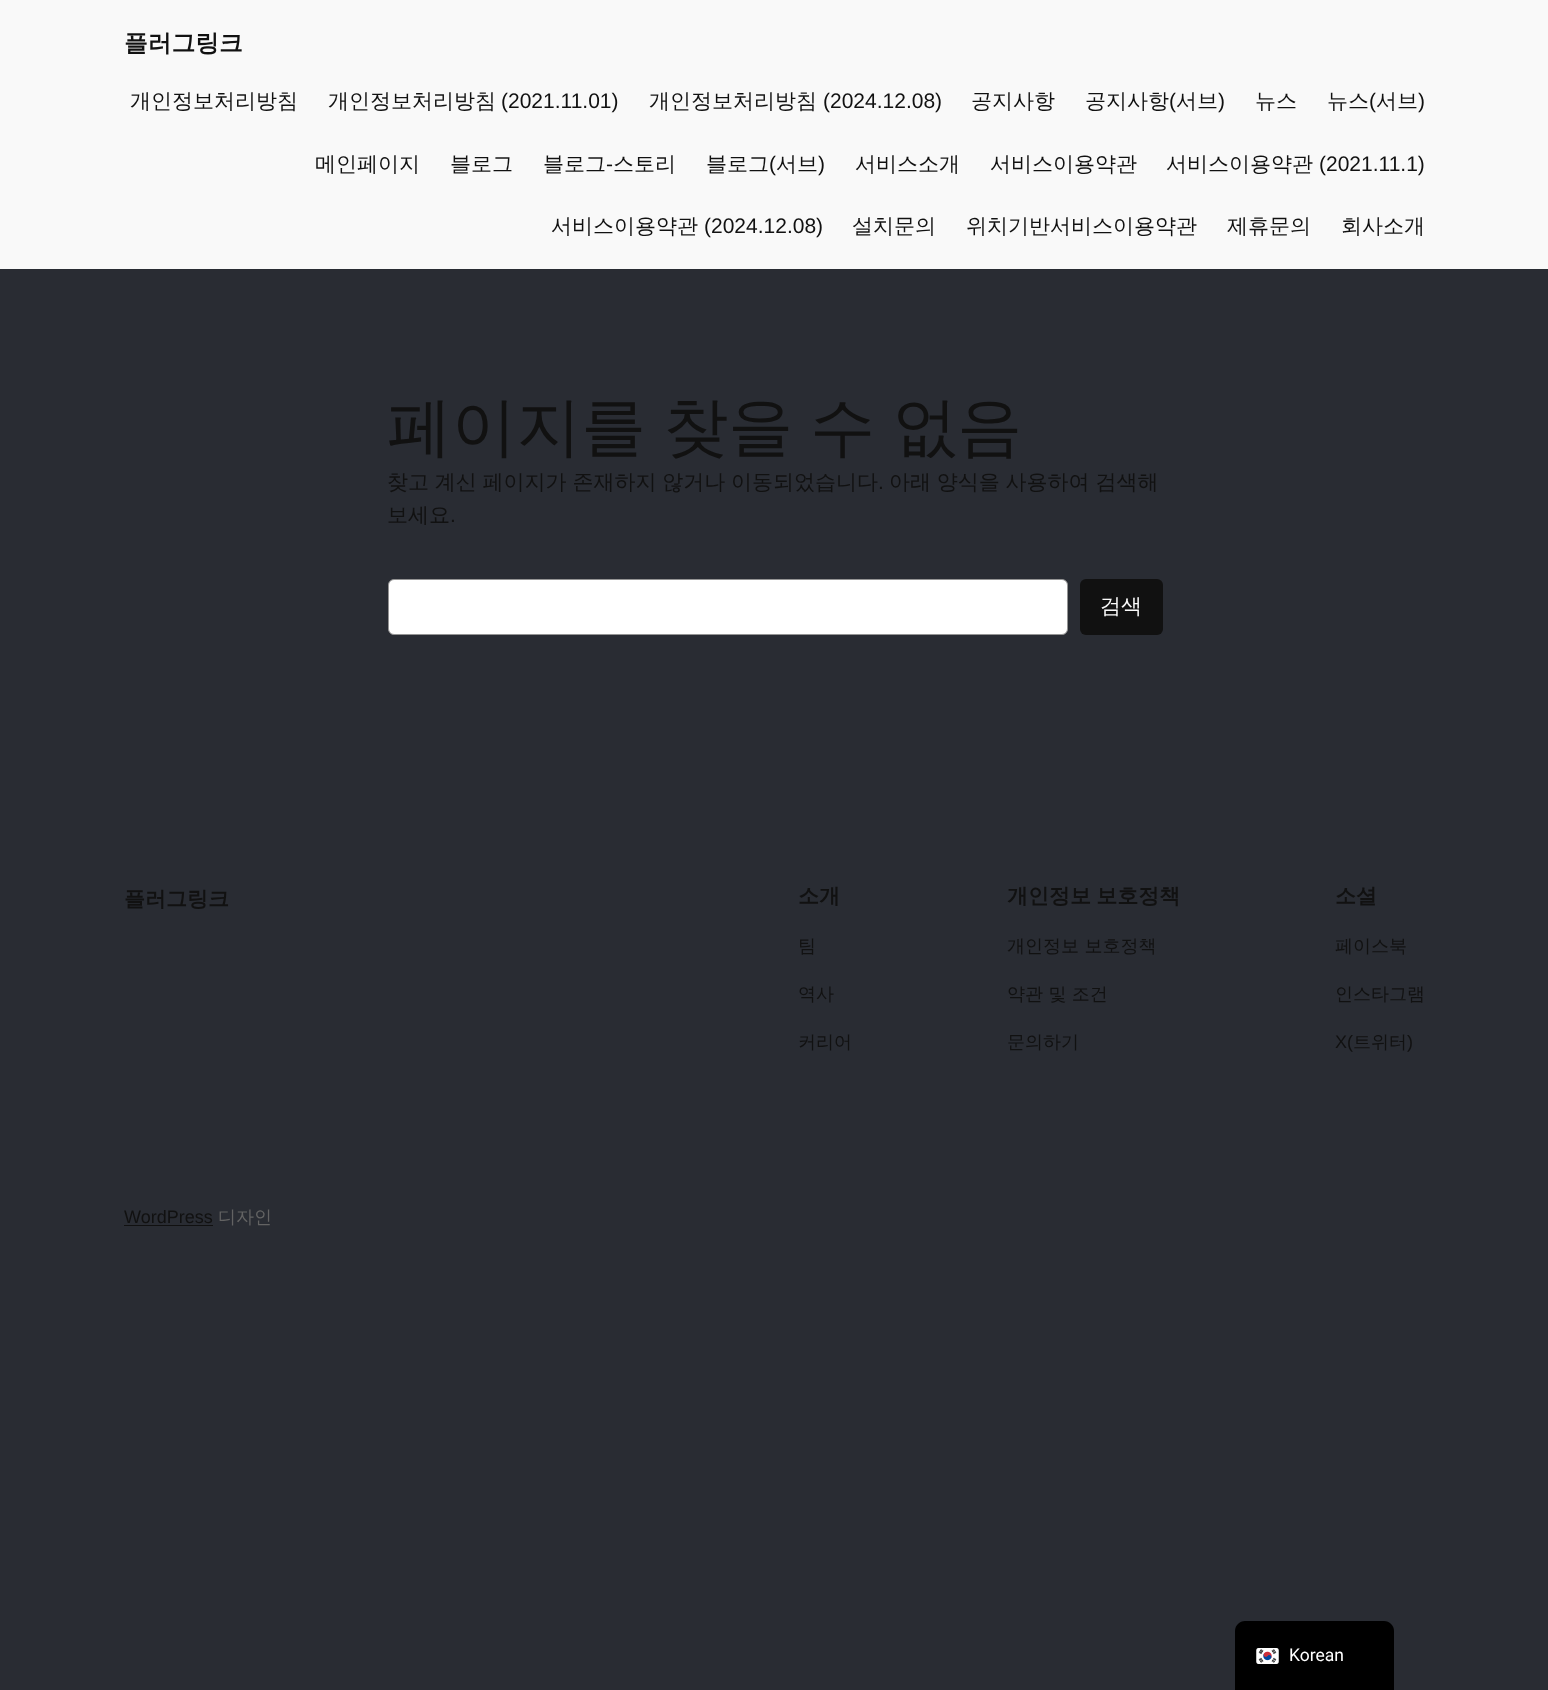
<?xml version="1.0" encoding="UTF-8"?>
<svg xmlns="http://www.w3.org/2000/svg" xmlns:xlink="http://www.w3.org/1999/xlink" width="1548" height="1690">
  <rect width="100%" height="100%" fill="#292c33" />
  <rect width="1548" height="269" fill="#f9f9f9" />
  <rect x="388.5" y="579.5" width="679" height="55" rx="5.5" fill="#ffffff" stroke="#949494" />
  <rect x="1080" y="579" width="83" height="56" rx="6" fill="#111111" />
  <rect x="124" y="1225" width="89" height="1" fill="#111111" />
  <path d="M 1245 1621 h 139 c 5.5 0 10 4.5 10 10 v 59 h -159 v -59 c 0 -5.5 4.5 -10 10 -10 z" fill="#000000" />
  <image x="1256" y="1648" width="23" height="16" xlink:href="image1.png" />
  <text x="124" y="51" style="font-family: WenQuanYi Zen Hei; font-size: 23.75px; font-weight: bold; fill: #111111">플러그링크</text>
  <text x="130" y="108" style="font-family: WenQuanYi Zen Hei; font-size: 21px; font-weight: 500; fill: #111111">개인정보처리방침</text>
  <text x="328" y="108" style="font-family: WenQuanYi Zen Hei; font-size: 21px; font-weight: 500; fill: #111111">개인정보처리방침</text>
  <text x="501" y="108" style="font-family: Liberation Sans; font-size: 21px; fill: #111111">(2021.11.01)</text>
  <text x="649" y="108" style="font-family: WenQuanYi Zen Hei; font-size: 21px; font-weight: 500; fill: #111111">개인정보처리방침</text>
  <text x="823" y="108" style="font-family: Liberation Sans; font-size: 21px; fill: #111111">(2024.12.08)</text>
  <text x="971" y="108" style="font-family: WenQuanYi Zen Hei; font-size: 21px; font-weight: 500; fill: #111111">공지사항</text>
  <text x="1085" y="108" style="font-family: WenQuanYi Zen Hei; font-size: 21px; font-weight: 500; fill: #111111">공지사항</text>
  <text x="1169" y="108" style="font-family: Liberation Sans; font-size: 21px; fill: #111111">(</text>
  <text x="1176" y="108" style="font-family: WenQuanYi Zen Hei; font-size: 21px; font-weight: 500; fill: #111111">서브</text>
  <text x="1218" y="108" style="font-family: Liberation Sans; font-size: 21px; fill: #111111">)</text>
  <text x="1255" y="108" style="font-family: WenQuanYi Zen Hei; font-size: 21px; font-weight: 500; fill: #111111">뉴스</text>
  <text x="1327" y="108" style="font-family: WenQuanYi Zen Hei; font-size: 21px; font-weight: 500; fill: #111111">뉴스</text>
  <text x="1369" y="108" style="font-family: Liberation Sans; font-size: 21px; fill: #111111">(</text>
  <text x="1376" y="108" style="font-family: WenQuanYi Zen Hei; font-size: 21px; font-weight: 500; fill: #111111">서브</text>
  <text x="1418" y="108" style="font-family: Liberation Sans; font-size: 21px; fill: #111111">)</text>
  <text x="315" y="171" style="font-family: WenQuanYi Zen Hei; font-size: 21px; font-weight: 500; fill: #111111">메인페이지</text>
  <text x="450" y="171" style="font-family: WenQuanYi Zen Hei; font-size: 21px; font-weight: 500; fill: #111111">블로그</text>
  <text x="543" y="171" style="font-family: WenQuanYi Zen Hei; font-size: 21px; font-weight: 500; fill: #111111">블로그</text>
  <text x="606" y="171" style="font-family: Liberation Sans; font-size: 21px; fill: #111111">-</text>
  <text x="613" y="171" style="font-family: WenQuanYi Zen Hei; font-size: 21px; font-weight: 500; fill: #111111">스토리</text>
  <text x="706" y="171" style="font-family: WenQuanYi Zen Hei; font-size: 21px; font-weight: 500; fill: #111111">블로그</text>
  <text x="769" y="171" style="font-family: Liberation Sans; font-size: 21px; fill: #111111">(</text>
  <text x="776" y="171" style="font-family: WenQuanYi Zen Hei; font-size: 21px; font-weight: 500; fill: #111111">서브</text>
  <text x="818" y="171" style="font-family: Liberation Sans; font-size: 21px; fill: #111111">)</text>
  <text x="855" y="171" style="font-family: WenQuanYi Zen Hei; font-size: 21px; font-weight: 500; fill: #111111">서비스소개</text>
  <text x="990" y="171" style="font-family: WenQuanYi Zen Hei; font-size: 21px; font-weight: 500; fill: #111111">서비스이용약관</text>
  <text x="1166" y="171" style="font-family: WenQuanYi Zen Hei; font-size: 21px; font-weight: 500; fill: #111111">서비스이용약관</text>
  <text x="1319" y="171" style="font-family: Liberation Sans; font-size: 21px; fill: #111111">(2021.11.1)</text>
  <text x="551" y="233" style="font-family: WenQuanYi Zen Hei; font-size: 21px; font-weight: 500; fill: #111111">서비스이용약관</text>
  <text x="704" y="233" style="font-family: Liberation Sans; font-size: 21px; fill: #111111">(2024.12.08)</text>
  <text x="852" y="233" style="font-family: WenQuanYi Zen Hei; font-size: 21px; font-weight: 500; fill: #111111">설치문의</text>
  <text x="966" y="233" style="font-family: WenQuanYi Zen Hei; font-size: 21px; font-weight: 500; fill: #111111">위치기반서비스이용약관</text>
  <text x="1227" y="233" style="font-family: WenQuanYi Zen Hei; font-size: 21px; font-weight: 500; fill: #111111">제휴문의</text>
  <text x="1341" y="233" style="font-family: WenQuanYi Zen Hei; font-size: 21px; font-weight: 500; fill: #111111">회사소개</text>
  <text x="387" y="449" word-spacing="-2" style="font-family: WenQuanYi Zen Hei; font-size: 64.75px; font-weight: 500; fill: #111111">페이지를 찾을 수 없음</text>
  <text x="387" y="489" word-spacing="-0.5" style="font-family: WenQuanYi Zen Hei; font-size: 21px; font-weight: 500; fill: #111111">찾고 계신 페이지가 존재하지 않거나 이동되었습니다</text>
  <text x="878" y="489" style="font-family: Liberation Sans; font-size: 21px; fill: #111111">.</text>
  <text x="889" y="489" word-spacing="-0.5" style="font-family: WenQuanYi Zen Hei; font-size: 21px; font-weight: 500; fill: #111111">아래 양식을 사용하여 검색해</text>
  <text x="387" y="522" style="font-family: WenQuanYi Zen Hei; font-size: 21px; font-weight: 500; fill: #111111">보세요</text>
  <text x="450" y="522" style="font-family: Liberation Sans; font-size: 21px; fill: #111111">.</text>
  <text x="1100" y="613" style="font-family: WenQuanYi Zen Hei; font-size: 21px; font-weight: 500; fill: #f9f9f9">검색</text>
  <text x="124" y="906" style="font-family: WenQuanYi Zen Hei; font-size: 21px; font-weight: bold; fill: #111111">플러그링크</text>
  <text x="798" y="903" style="font-family: WenQuanYi Zen Hei; font-size: 21px; font-weight: bold; fill: #111111">소개</text>
  <text x="798" y="952" style="font-family: WenQuanYi Zen Hei; font-size: 18px; font-weight: 500; fill: #111111">팀</text>
  <text x="798" y="1000" style="font-family: WenQuanYi Zen Hei; font-size: 18px; font-weight: 500; fill: #111111">역사</text>
  <text x="798" y="1048" style="font-family: WenQuanYi Zen Hei; font-size: 18px; font-weight: 500; fill: #111111">커리어</text>
  <text x="1007" y="903" word-spacing="-1" style="font-family: WenQuanYi Zen Hei; font-size: 21px; font-weight: bold; fill: #111111">개인정보 보호정책</text>
  <text x="1007" y="952" style="font-family: WenQuanYi Zen Hei; font-size: 18px; font-weight: 500; fill: #111111">개인정보 보호정책</text>
  <text x="1007" y="1000" style="font-family: WenQuanYi Zen Hei; font-size: 18px; font-weight: 500; fill: #111111">약관 및 조건</text>
  <text x="1007" y="1048" style="font-family: WenQuanYi Zen Hei; font-size: 18px; font-weight: 500; fill: #111111">문의하기</text>
  <text x="1335" y="903" style="font-family: WenQuanYi Zen Hei; font-size: 21px; font-weight: bold; fill: #111111">소셜</text>
  <text x="1335" y="952" style="font-family: WenQuanYi Zen Hei; font-size: 18px; font-weight: 500; fill: #111111">페이스북</text>
  <text x="1335" y="1000" style="font-family: WenQuanYi Zen Hei; font-size: 18px; font-weight: 500; fill: #111111">인스타그램</text>
  <text x="1335" y="1048" style="font-family: Liberation Sans; font-size: 18px; fill: #111111">X(</text>
  <text x="1353" y="1048" style="font-family: WenQuanYi Zen Hei; font-size: 18px; font-weight: 500; fill: #111111">트위터</text>
  <text x="1407" y="1048" style="font-family: Liberation Sans; font-size: 18px; fill: #111111">)</text>
  <text x="124" y="1223" style="font-family: Liberation Sans; font-size: 18px; fill: #111111">WordPress</text>
  <text x="218" y="1223" style="font-family: WenQuanYi Zen Hei; font-size: 18px; font-weight: 500; fill: #636363">디자인</text>
  <text x="1289" y="1661" style="font-family: Roboto; font-size: 17.5px; fill: #ffffff">Korean</text>
</svg>
